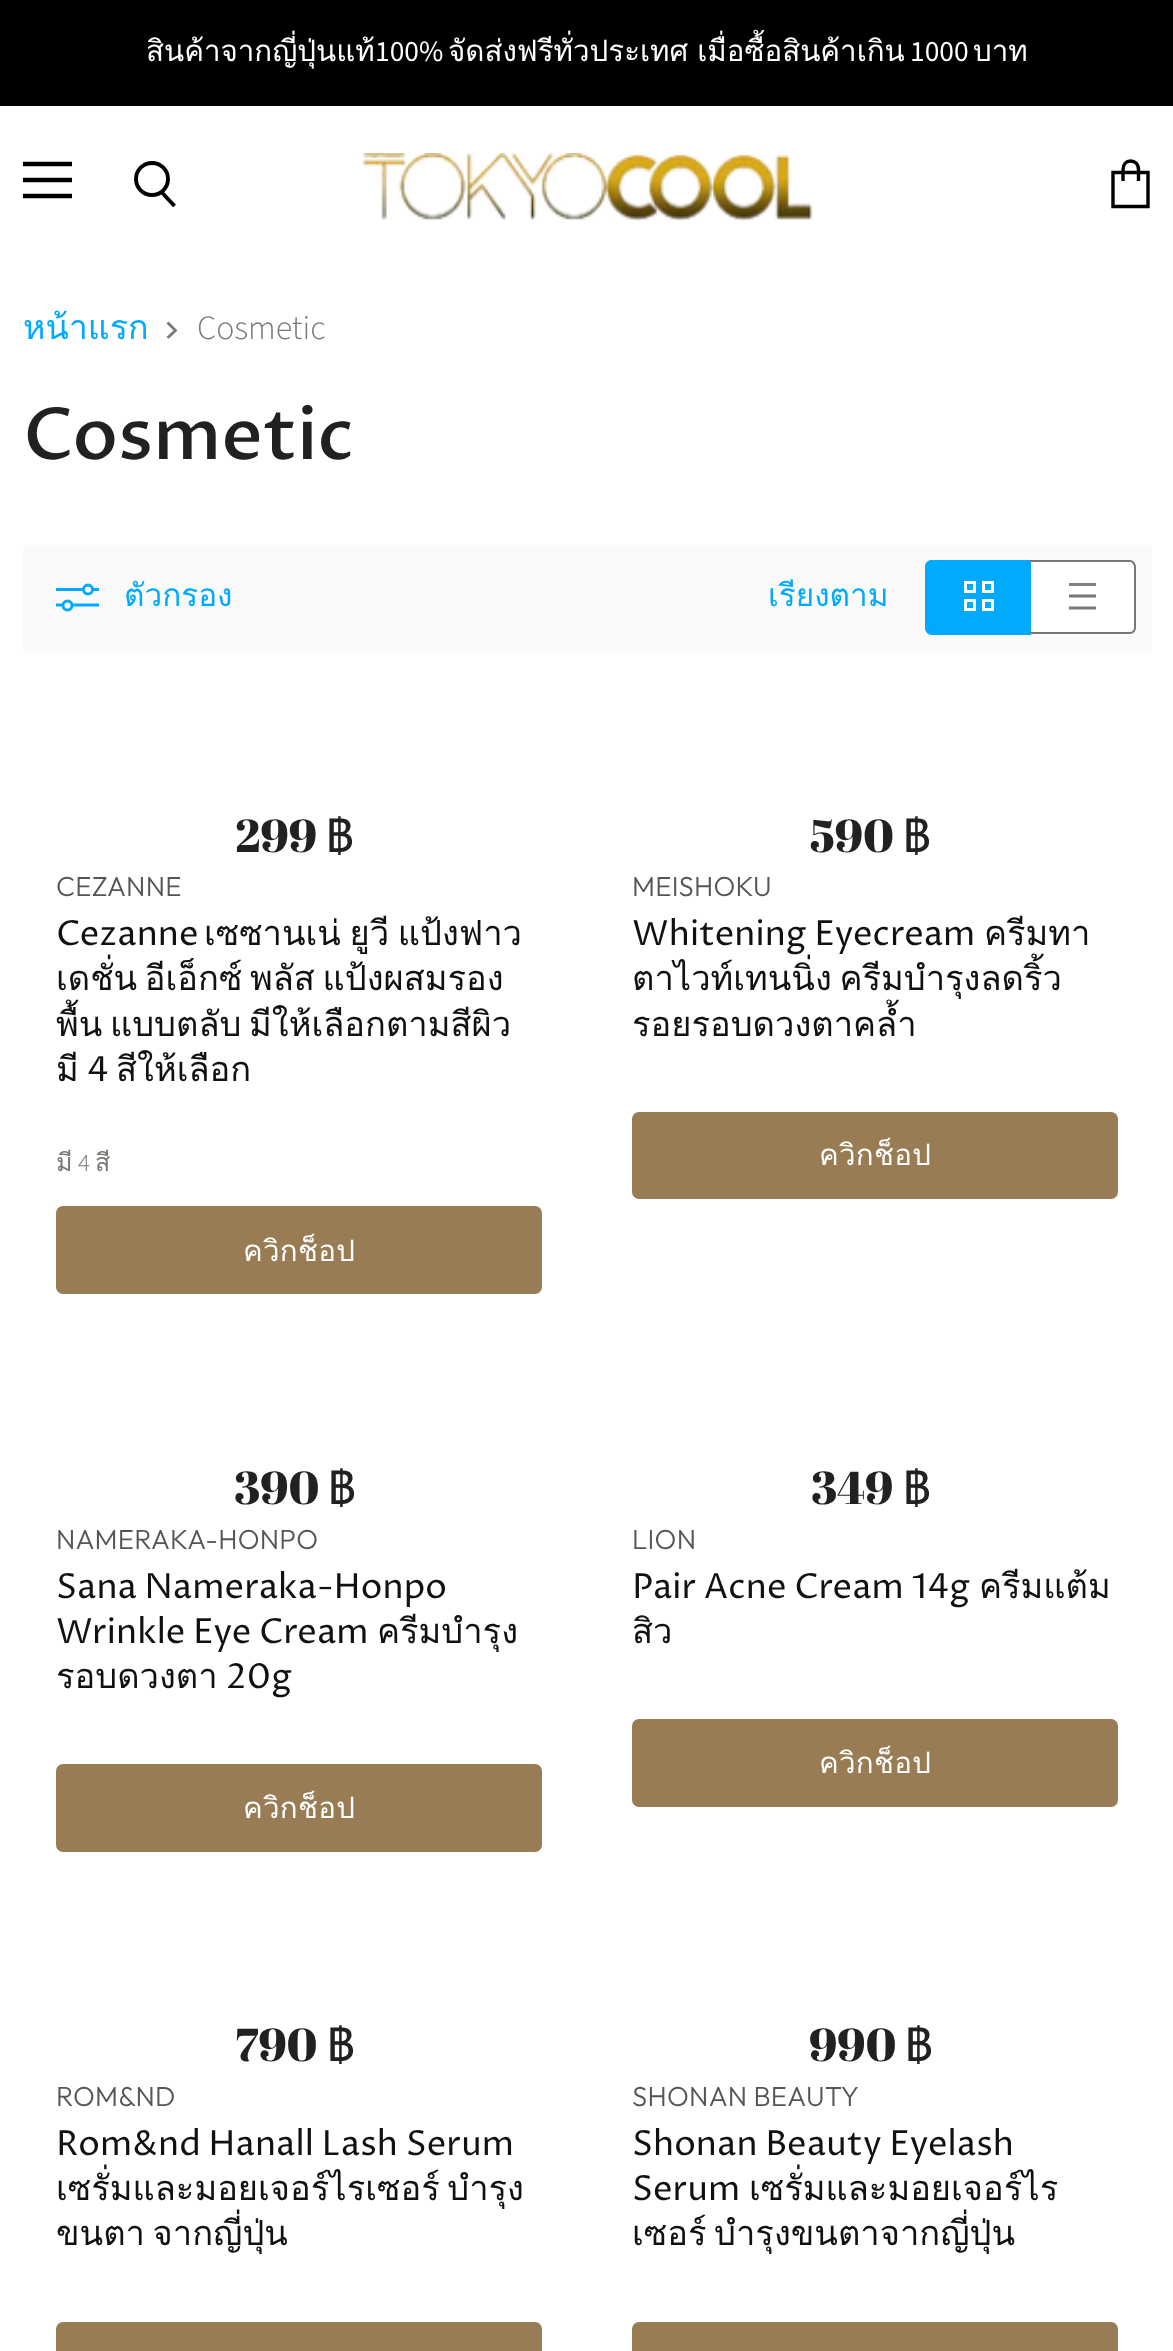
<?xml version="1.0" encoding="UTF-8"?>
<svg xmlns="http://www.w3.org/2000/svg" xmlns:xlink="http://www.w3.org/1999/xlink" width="1173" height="2351">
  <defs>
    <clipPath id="clip1"><rect x="23" y="160" width="49" height="40" /></clipPath>
    <clipPath id="clip2"><path d="M 166 338.5 v -18 h 11.5 v 18 z" /></clipPath>
  </defs>
  <rect width="100%" height="100%" fill="#ffffff" />
  <rect width="1173" height="106" fill="#000000" />
  <image x="362" y="153" width="451" height="68" xlink:href="image1.png" />
  <g clip-path="url(#clip1)">
    <path d="M 70 164 h -45 m 45 16 h -45 m 45 16 h -45" fill="none" stroke="#000000" stroke-width="4.5" stroke-linecap="square" stroke-linejoin="round" />
  </g>
  <path d="M 174.5 206 l -13.5 -14.5" fill="none" stroke="#000000" stroke-width="3.9" />
  <circle cx="152" cy="179" r="16" fill="none" stroke="#000000" stroke-width="3.9" />
  <path d="M 1113 172.5 h 35 v 34 h -35 z m 25.5 8.5 v -11 c 0 -6 -3.5 -9 -8 -9 c -4 0 -7.5 3 -7.5 9 v 11" fill="none" stroke="#000000" stroke-width="3.4" />
  <g clip-path="url(#clip2)">
    <path d="M 167.5 338 l 8 -7.5 l -8 -8" fill="none" stroke="#7c7873" stroke-width="2.8" />
  </g>
  <rect x="23" y="545" width="1129" height="108" rx="3" fill="#fafafa" />
  <circle cx="88" cy="589.5" r="4.5" fill="none" stroke="#00aaff" stroke-width="2.8" />
  <path d="M 56 589.5 h 27 m 16 0 h -7 m -24.5 11.5 c -6 0 -6 9 0 9 c 6 0 6 -9 0 -9 z m 31.5 4 h -27 m -16 0 h 7" fill="none" stroke="#00aaff" stroke-width="2.8" />
  <path d="M 932 560 h 99 v 75 h -99 c -4 0 -7 -3 -7 -7 v -61 c 0 -4 3 -7 7 -7 z" fill="#00aaff" />
  <path d="M 932 560 h 98 v 74 h -98 c -4 0 -7 -3 -7 -6 v -61 c 0 -4 3 -7 7 -7 z m 0 2 h 98 v 70 h -98 c -3 0 -5 -2 -5 -4 v -61 c 0 -2 2 -5 5 -5 z" fill="#00aaff" fill-rule="evenodd" />
  <rect x="965.5" y="582.5" width="9" height="9" fill="none" stroke="#ffffff" stroke-width="3" />
  <rect x="983.5" y="582.5" width="9" height="9" fill="none" stroke="#ffffff" stroke-width="3" />
  <rect x="965.5" y="600.5" width="9" height="9" fill="none" stroke="#ffffff" stroke-width="3" />
  <rect x="983.5" y="600.5" width="9" height="9" fill="none" stroke="#ffffff" stroke-width="3" />
  <path d="M 1031 560 h 98 c 4 0 7 3 7 7 v 61 c 0 4 -3 7 -7 7 h -98 z" fill="#ffffff" />
  <path d="M 1030 560 h 100 c 3 0 6 3 6 7 v 61 c 0 3 -3 6 -6 6 h -100 z m 0 2 h 100 c 2 0 4 3 4 5 v 61 c 0 2 -2 4 -4 4 h -100 z" fill="#777777" fill-rule="evenodd" />
  <rect x="1069" y="583" width="27" height="3" fill="#808080" />
  <path d="M 1069 608 h 27 m -27 -12 h 27" fill="none" stroke="#777777" stroke-width="2.8" stroke-linejoin="round" />
  <rect x="57" y="1207" width="484" height="86" rx="6" fill="#997c54" stroke="#997c54" stroke-width="2" />
  <rect x="633" y="1113" width="484" height="85" rx="6" fill="#997c54" stroke="#997c54" stroke-width="2" />
  <rect x="57" y="1765" width="484" height="86" rx="6" fill="#997c54" stroke="#997c54" stroke-width="2" />
  <rect x="633" y="1720" width="484" height="86" rx="6" fill="#997c54" stroke="#997c54" stroke-width="2" />
  <rect x="57" y="2323" width="484" height="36" rx="6" fill="#997c54" stroke="#997c54" stroke-width="2" />
  <rect x="633" y="2323" width="484" height="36" rx="6" fill="#997c54" stroke="#997c54" stroke-width="2" />
  <text x="146" y="61" style="font-family: Loma; font-size: 29.5px; fill: #ffffff">สินค้าจากญี่ปุ่นแท้</text>
  <text x="375" y="61" style="font-family: Source Sans Pro; font-size: 29.5px; fill: #ffffff">100%</text>
  <text x="448" y="61" word-spacing="-1" style="font-family: Loma; font-size: 29.5px; fill: #ffffff">จัดส่งฟรีทั่วประเทศ เมื่อซื้อสินค้าเกิน</text>
  <text x="910" y="61" style="font-family: Source Sans Pro; font-size: 29.5px; fill: #ffffff">1000</text>
  <text x="973" y="61" style="font-family: Loma; font-size: 29.5px; fill: #ffffff">บาท</text>
  <text x="23" y="339" style="font-family: Loma; font-size: 34px; fill: #00aaff">หน้าแรก</text>
  <text x="197" y="339" style="font-family: Source Sans Pro; font-size: 34px; font-weight: 300; fill: #7c7873">Cosmetic</text>
  <text x="23" y="459" style="font-family: Proza Libre; font-size: 71.75px; font-weight: 500; fill: #212121">Cosmetic</text>
  <text x="124" y="606" style="font-family: Loma; font-size: 31.5px; fill: #00aaff">ตัวกรอง</text>
  <text x="768" y="606" style="font-family: Loma; font-size: 31.5px; fill: #00aaff">เรียงตาม</text>
  <text x="235" y="852" style="font-family: Abril Fatface; font-size: 46px; fill: #212121">299</text>
  <text x="326" y="852" style="font-family: Loma; font-size: 46px; fill: #212121">฿</text>
  <text x="56" y="896" style="font-family: Outfit; font-size: 27.5px; font-weight: 300; letter-spacing: 0.25px; fill: #555555">CEZANNE</text>
  <text x="56" y="945" style="font-family: Proza Libre; font-size: 34.5px; fill: #111111">Cezanne</text>
  <text x="204" y="945" word-spacing="-3" style="font-family: Loma; font-size: 34.5px; fill: #111111">เซซานเน่ ยูวี แป้งฟาว</text>
  <text x="56" y="990" word-spacing="-4" style="font-family: Loma; font-size: 34.5px; fill: #111111">เดชั่น อีเอ็กซ์ พลัส แป้งผสมรอง</text>
  <text x="56" y="1036" word-spacing="-4" style="font-family: Loma; font-size: 34.5px; fill: #111111">พื้น แบบตลับ มีให้เลือกตามสีผิว</text>
  <text x="56" y="1081" style="font-family: Loma; font-size: 34.5px; fill: #111111">มี</text>
  <text x="87" y="1081" style="font-family: Proza Libre; font-size: 34.5px; fill: #111111">4</text>
  <text x="116" y="1081" style="font-family: Loma; font-size: 34.5px; fill: #111111">สีให้เลือก</text>
  <text x="56" y="1171" style="font-family: Loma; font-size: 25px; fill: #7c7873">มี</text>
  <text x="78" y="1171" style="font-family: Source Sans Pro; font-size: 25px; font-weight: 300; fill: #7c7873">4</text>
  <text x="95" y="1171" style="font-family: Loma; font-size: 25px; fill: #7c7873">สี</text>
  <text x="243" y="1261" style="font-family: Loma; font-size: 29.5px; letter-spacing: 0.25px; fill: #ffffff">ควิกช็อป</text>
  <text x="810" y="852" style="font-family: Abril Fatface; font-size: 46px; fill: #212121">590</text>
  <text x="903" y="852" style="font-family: Loma; font-size: 46px; fill: #212121">฿</text>
  <text x="632" y="896" style="font-family: Outfit; font-size: 27.5px; font-weight: 300; letter-spacing: 0.25px; fill: #555555">MEISHOKU</text>
  <text x="632" y="945" style="font-family: Proza Libre; font-size: 34.5px; fill: #111111">Whitening Eyecream</text>
  <text x="984" y="945" style="font-family: Loma; font-size: 34.5px; fill: #111111">ครีมทา</text>
  <text x="632" y="990" word-spacing="-4" style="font-family: Loma; font-size: 34.5px; fill: #111111">ตาไวท์เทนนิ่ง ครีมบำรุงลดริ้ว</text>
  <text x="632" y="1036" style="font-family: Loma; font-size: 34.5px; fill: #111111">รอยรอบดวงตาคล้ำ</text>
  <text x="819" y="1165" style="font-family: Loma; font-size: 29.5px; letter-spacing: 0.25px; fill: #ffffff">ควิกช็อป</text>
  <text x="234" y="1504" style="font-family: Abril Fatface; font-size: 46px; fill: #212121">390</text>
  <text x="328" y="1504" style="font-family: Loma; font-size: 46px; fill: #212121">฿</text>
  <text x="56" y="1549" style="font-family: Outfit; font-size: 27.5px; font-weight: 300; letter-spacing: 0.25px; fill: #555555">NAMERAKA-HONPO</text>
  <text x="56" y="1598" style="font-family: Proza Libre; font-size: 34.5px; fill: #111111">Sana Nameraka-Honpo</text>
  <text x="56" y="1643" style="font-family: Proza Libre; font-size: 34.5px; fill: #111111">Wrinkle Eye Cream</text>
  <text x="377" y="1643" style="font-family: Loma; font-size: 34.5px; fill: #111111">ครีมบำรุง</text>
  <text x="56" y="1688" style="font-family: Loma; font-size: 34.5px; fill: #111111">รอบดวงตา</text>
  <text x="226" y="1688" style="font-family: Proza Libre; font-size: 34.5px; fill: #111111">20g</text>
  <text x="243" y="1818" style="font-family: Loma; font-size: 29.5px; letter-spacing: 0.25px; fill: #ffffff">ควิกช็อป</text>
  <text x="811" y="1504" style="font-family: Abril Fatface; font-size: 46px; fill: #212121">349</text>
  <text x="903" y="1504" style="font-family: Loma; font-size: 46px; fill: #212121">฿</text>
  <text x="632" y="1549" style="font-family: Outfit; font-size: 27.5px; font-weight: 300; letter-spacing: 0.25px; fill: #555555">LION</text>
  <text x="632" y="1598" style="font-family: Proza Libre; font-size: 34.5px; fill: #111111">Pair Acne Cream 14g</text>
  <text x="979" y="1598" style="font-family: Loma; font-size: 34.5px; fill: #111111">ครีมแต้ม</text>
  <text x="632" y="1643" style="font-family: Loma; font-size: 34.5px; fill: #111111">สิว</text>
  <text x="819" y="1773" style="font-family: Loma; font-size: 29.5px; letter-spacing: 0.25px; fill: #ffffff">ควิกช็อป</text>
  <text x="235" y="2061" style="font-family: Abril Fatface; font-size: 46px; fill: #212121">790</text>
  <text x="327" y="2061" style="font-family: Loma; font-size: 46px; fill: #212121">฿</text>
  <text x="56" y="2106" style="font-family: Outfit; font-size: 27.5px; font-weight: 300; letter-spacing: 0.25px; fill: #555555">ROM&amp;ND</text>
  <text x="56" y="2155" style="font-family: Proza Libre; font-size: 34.5px; fill: #111111">Rom&amp;nd Hanall Lash Serum</text>
  <text x="56" y="2200" word-spacing="-4" style="font-family: Loma; font-size: 34.5px; fill: #111111">เซรั่มและมอยเจอร์ไรเซอร์ บำรุง</text>
  <text x="56" y="2245" word-spacing="-4" style="font-family: Loma; font-size: 34.5px; fill: #111111">ขนตา จากญี่ปุ่น</text>
  <text x="809" y="2061" style="font-family: Abril Fatface; font-size: 46px; fill: #212121">990</text>
  <text x="905" y="2061" style="font-family: Loma; font-size: 46px; fill: #212121">฿</text>
  <text x="632" y="2106" style="font-family: Outfit; font-size: 27.5px; font-weight: 300; letter-spacing: 0.25px; fill: #555555">SHONAN BEAUTY</text>
  <text x="632" y="2155" style="font-family: Proza Libre; font-size: 34.5px; fill: #111111">Shonan Beauty Eyelash</text>
  <text x="632" y="2200" style="font-family: Proza Libre; font-size: 34.5px; fill: #111111">Serum</text>
  <text x="749" y="2200" style="font-family: Loma; font-size: 34.5px; fill: #111111">เซรั่มและมอยเจอร์ไร</text>
  <text x="632" y="2245" word-spacing="-4" style="font-family: Loma; font-size: 34.5px; fill: #111111">เซอร์ บำรุงขนตาจากญี่ปุ่น</text>
</svg>
